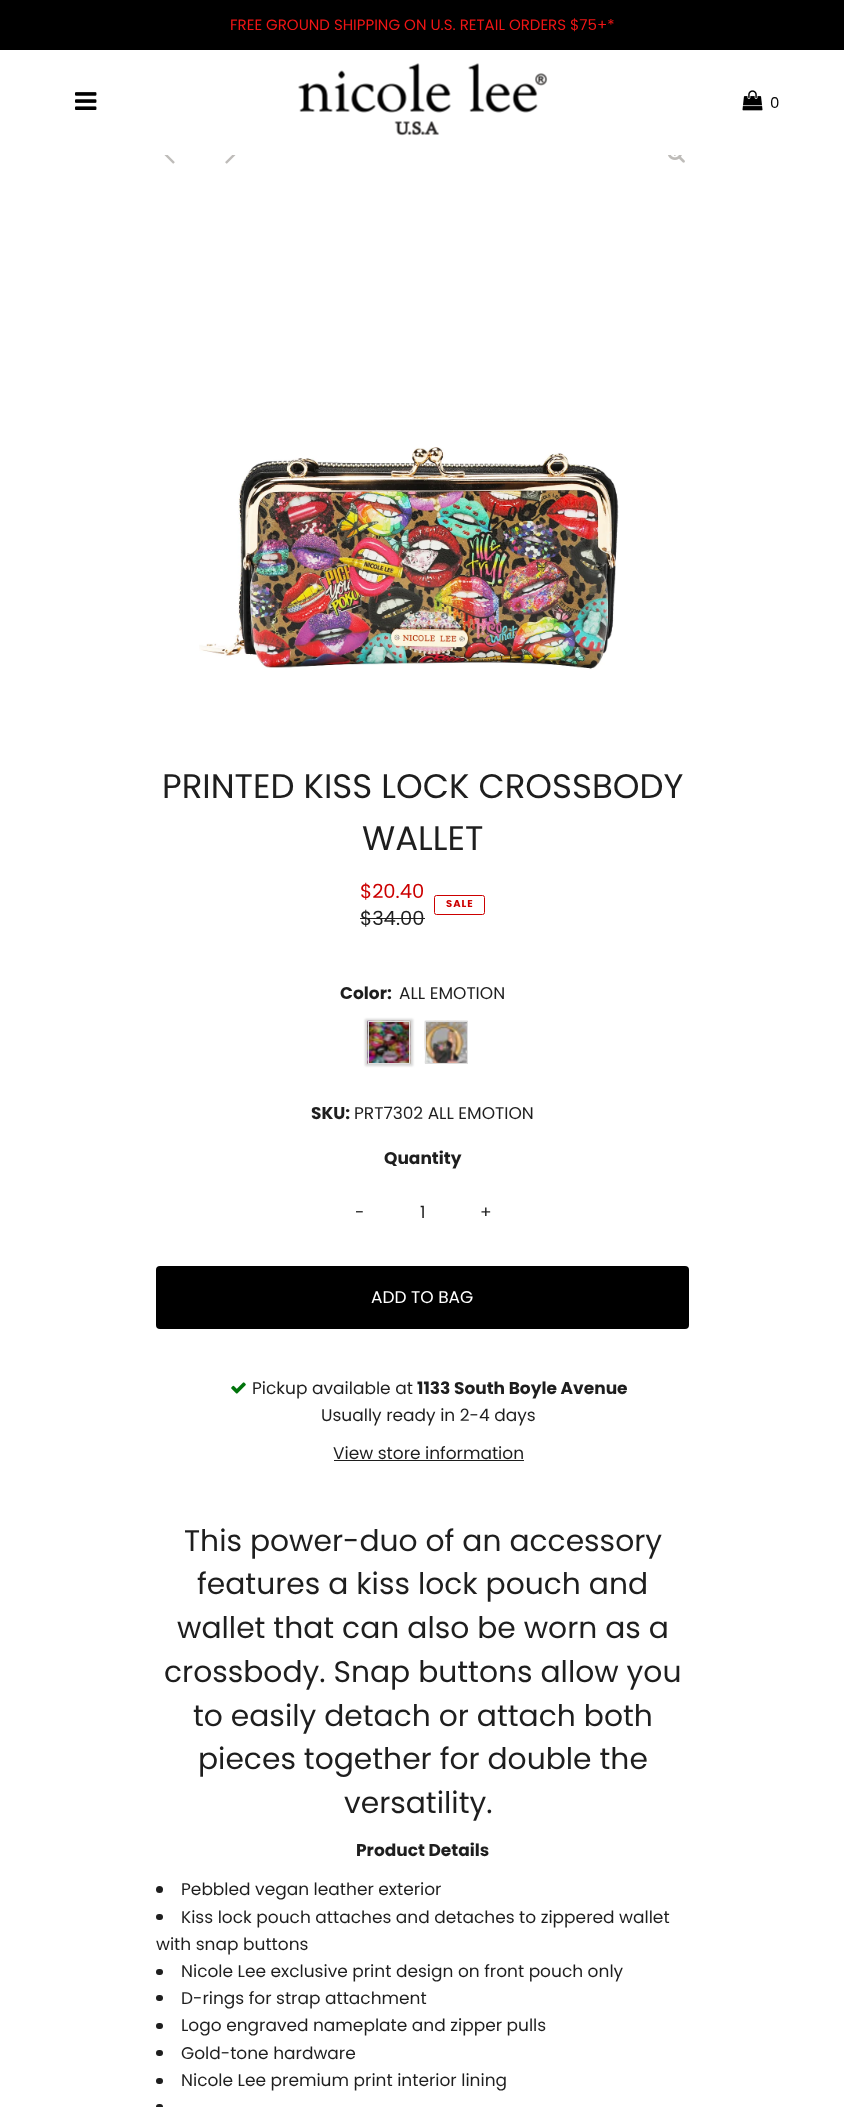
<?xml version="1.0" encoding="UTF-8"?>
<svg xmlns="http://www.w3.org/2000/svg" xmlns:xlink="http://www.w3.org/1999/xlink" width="844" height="2107">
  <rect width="100%" height="100%" fill="#ffffff" />
  <rect width="844" height="50" fill="#000000" />
  <image x="75" y="92" width="22" height="18" xlink:href="image1.png" />
  <image x="298" y="63" width="250" height="73" xlink:href="image2.png" />
  <image x="742" y="90" width="21" height="21" xlink:href="image3.png" />
  <image x="164" y="155" width="11" height="9" xlink:href="image4.png" />
  <image x="668" y="155" width="17" height="8" xlink:href="image5.png" />
  <image x="199" y="447" width="420" height="223" xlink:href="image6.png" />
  <image x="225" y="155" width="11" height="9" xlink:href="image7.png" />
  <rect x="360" y="918" width="65" height="1" fill="#1e1e1e" />
  <rect x="434.5" y="895.5" width="50" height="19" rx="2" fill="none" stroke="#cc0000" />
  <rect x="365" y="1019" width="48" height="47" fill="#d6d6d6" filter="blur(1px)" />
  <image x="367" y="1020" width="44" height="44" xlink:href="image8.png" />
  <rect x="368.5" y="1021.5" width="41" height="42" fill="none" stroke="#dddddd" />
  <image x="424" y="1020" width="44" height="44" xlink:href="image9.png" />
  <rect x="425.5" y="1021.5" width="42" height="42" fill="none" stroke="#dddddd" />
  <rect x="156" y="1266" width="533" height="63" rx="4" fill="#000000" />
  <image x="231" y="1382" width="15" height="12" xlink:href="image10.png" />
  <rect x="334" y="1460" width="190" height="1" fill="#1e1e1e" />
  <circle cx="159.5" cy="1889.5" r="3.5" fill="#1e1e1e" />
  <rect x="156" y="1914" width="7" height="6" rx="3" fill="#1e1e1e" />
  <rect x="156" y="1969" width="7" height="6" rx="3" fill="#1e1e1e" />
  <rect x="156" y="1995" width="7" height="6" rx="3" fill="#1e1e1e" />
  <rect x="156" y="2023" width="7" height="6" rx="3" fill="#1e1e1e" />
  <rect x="156" y="2050" width="7" height="6" rx="3" fill="#1e1e1e" />
  <rect x="156" y="2078" width="7" height="6" rx="3" fill="#1e1e1e" />
  <rect x="156" y="2104" width="7" height="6" rx="3" fill="#1e1e1e" />
  <text x="230" y="30" style="font-family: Poppins; font-size: 15px; fill: #ef1515">FREE GROUND SHIPPING ON U.S. RETAIL ORDERS $75+*</text>
  <text x="770" y="108" style="font-family: Poppins; font-size: 15px; fill: #000000">0</text>
  <text x="162" y="798" style="font-family: Poppins; font-size: 34px; fill: #1e1e1e">PRINTED KISS LOCK CROSSBODY</text>
  <text x="362" y="850" style="font-family: Poppins; font-size: 34px; fill: #1e1e1e">WALLET</text>
  <text x="360" y="898" style="font-family: Poppins; font-size: 19.5px; fill: #cc0000">$20.40</text>
  <text x="360" y="925" style="font-family: Poppins; font-size: 19.5px; fill: #1e1e1e">$34.00</text>
  <text x="446" y="907" style="font-family: Poppins; font-size: 10px; font-weight: bold; letter-spacing: 1px; fill: #cc0000">SALE</text>
  <text x="340" y="999" style="font-family: Poppins; font-size: 17px; font-weight: bold; fill: #1e1e1e">Color:</text>
  <text x="399" y="999" style="font-family: Poppins; font-size: 17px; fill: #1e1e1e">ALL EMOTION</text>
  <text x="311" y="1119" style="font-family: Poppins; font-size: 17px; font-weight: bold; fill: #1e1e1e">SKU:</text>
  <text x="354" y="1119" style="font-family: Poppins; font-size: 17px; fill: #1e1e1e">PRT7302 ALL EMOTION</text>
  <text x="384" y="1164" style="font-family: Poppins; font-size: 17px; font-weight: bold; fill: #1e1e1e">Quantity</text>
  <text x="355" y="1218" style="font-family: Poppins; font-size: 17px; fill: #1e1e1e">-</text>
  <text x="420" y="1218" style="font-family: Poppins; font-size: 17px; fill: #1e1e1e">1</text>
  <text x="480" y="1218" style="font-family: Poppins; font-size: 17px; fill: #1e1e1e">+</text>
  <text x="371" y="1303" style="font-family: Poppins; font-size: 17px; fill: #ffffff">ADD TO BAG</text>
  <text x="252" y="1394" style="font-family: Poppins; font-size: 17px; fill: #1e1e1e">Pickup available at</text>
  <text x="417" y="1394" style="font-family: Poppins; font-size: 17px; font-weight: bold; fill: #1e1e1e">1133 South Boyle Avenue</text>
  <text x="321" y="1421" style="font-family: Poppins; font-size: 17px; fill: #1e1e1e">Usually ready in 2-4 days</text>
  <text x="333" y="1459" style="font-family: Poppins; font-size: 17px; fill: #1e1e1e">View store information</text>
  <text x="184" y="1551" style="font-family: Poppins; font-size: 29.75px; fill: #1e1e1e">This power-duo of an accessory</text>
  <text x="197" y="1594" style="font-family: Poppins; font-size: 29.75px; fill: #1e1e1e">features a kiss lock pouch and</text>
  <text x="177" y="1638" style="font-family: Poppins; font-size: 29.75px; fill: #1e1e1e">wallet that can also be worn as a</text>
  <text x="164" y="1682" style="font-family: Poppins; font-size: 29.75px; fill: #1e1e1e">crossbody. Snap buttons allow you</text>
  <text x="193" y="1726" style="font-family: Poppins; font-size: 29.75px; fill: #1e1e1e">to easily detach or attach both</text>
  <text x="198" y="1769" style="font-family: Poppins; font-size: 29.75px; fill: #1e1e1e">pieces together for double the</text>
  <text x="344" y="1813" style="font-family: Poppins; font-size: 29.75px; fill: #1e1e1e">versatility.</text>
  <text x="356" y="1856" style="font-family: Poppins; font-size: 17px; font-weight: bold; fill: #1e1e1e">Product Details</text>
  <text x="181" y="1895" style="font-family: Poppins; font-size: 17px; fill: #1e1e1e">Pebbled vegan leather exterior</text>
  <text x="181" y="1923" style="font-family: Poppins; font-size: 17px; fill: #1e1e1e">Kiss lock pouch attaches and detaches to zippered wallet</text>
  <text x="156" y="1950" style="font-family: Poppins; font-size: 17px; fill: #1e1e1e">with snap buttons</text>
  <text x="181" y="1977" style="font-family: Poppins; font-size: 17px; fill: #1e1e1e">Nicole Lee exclusive print design on front pouch only</text>
  <text x="181" y="2004" style="font-family: Poppins; font-size: 17px; fill: #1e1e1e">D-rings for strap attachment</text>
  <text x="181" y="2031" style="font-family: Poppins; font-size: 17px; fill: #1e1e1e">Logo engraved nameplate and zipper pulls</text>
  <text x="181" y="2059" style="font-family: Poppins; font-size: 17px; fill: #1e1e1e">Gold-tone hardware</text>
  <text x="181" y="2086" style="font-family: Poppins; font-size: 17px; fill: #1e1e1e">Nicole Lee premium print interior lining</text>
</svg>
